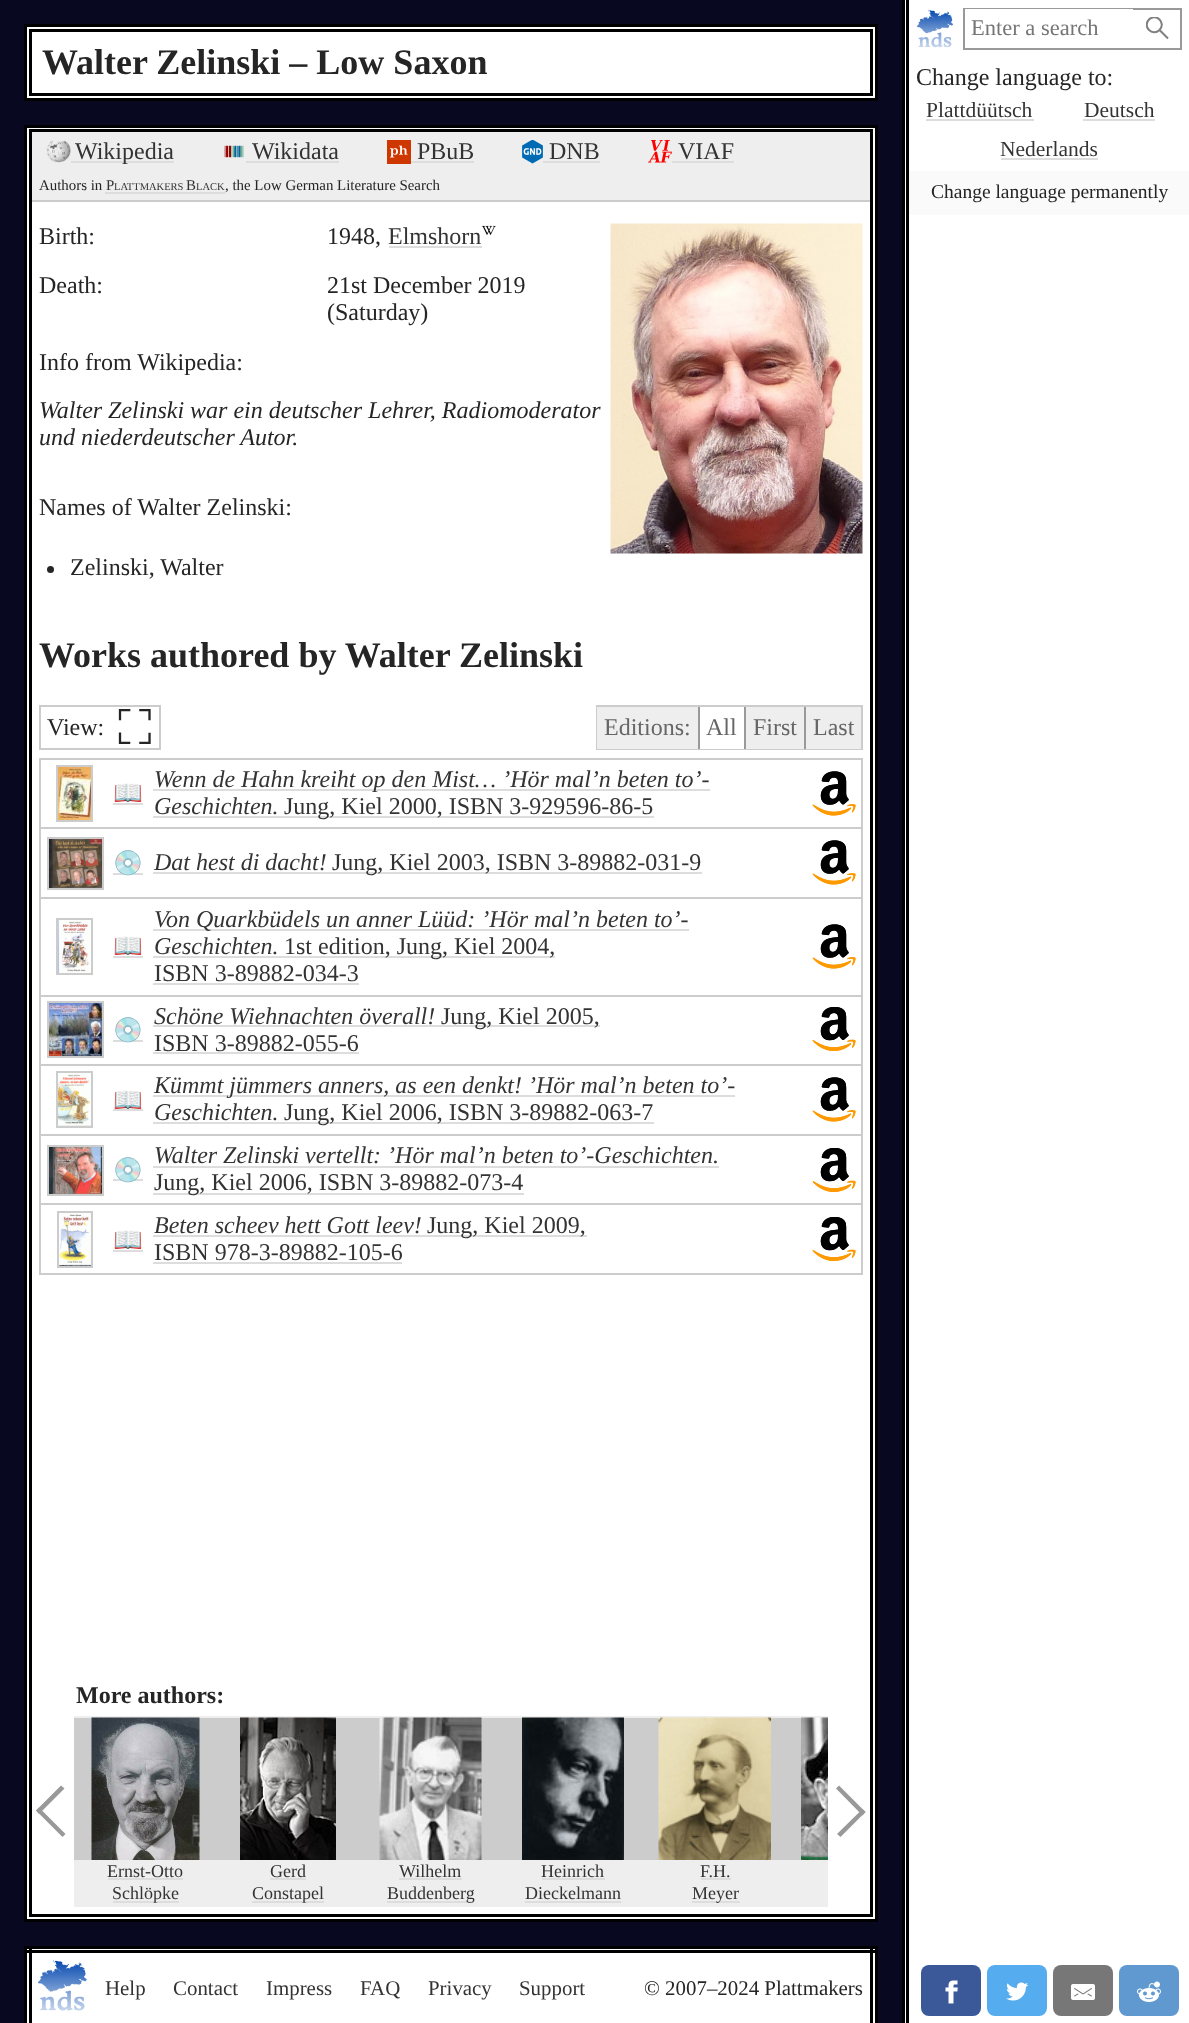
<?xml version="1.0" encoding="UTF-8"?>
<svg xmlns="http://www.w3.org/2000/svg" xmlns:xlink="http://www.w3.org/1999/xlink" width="1189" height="2023">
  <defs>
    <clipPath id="clip1"><rect x="1146" y="17" width="24" height="24" /></clipPath>
  </defs>
  <rect width="100%" height="100%" fill="#080820" />
  <rect x="25.5" y="25.5" width="851" height="74" fill="#ffffff" stroke="#000000" stroke-width="3" />
  <rect x="30.5" y="30.5" width="841" height="64" fill="none" stroke="#000000" stroke-width="3" />
  <rect x="905" width="284" height="2023" fill="#ffffff" />
  <rect x="902" width="3" height="2023" fill="#000000" />
  <rect x="906" width="3" height="2023" fill="#000000" />
  <image x="917" y="9" width="36" height="39" xlink:href="image1.png" />
  <rect x="964" y="9" width="217" height="40" fill="none" stroke="#999999" stroke-width="2" />
  <rect x="965" y="9" width="168" height="1" fill="#ffffff" />
  <g clip-path="url(#clip1)">
    <path d="M 1159.5 30 c 7 -7 -3.5 -17.5 -10.5 -10.5 c -7 7 3.5 17.5 10.5 10.5 l 8.5 8.5" fill="none" stroke="#808080" stroke-width="2" />
  </g>
  <rect x="926" y="119" width="108" height="2" fill="#dddddd" />
  <rect x="1083" y="119" width="72" height="2" fill="#dddddd" />
  <rect x="1001" y="158" width="97" height="2" fill="#dddddd" />
  <rect x="909" y="171" width="280" height="44" fill="#fafafa" />
  <rect x="921" y="1965" width="60" height="51" rx="8" fill="#3b5998" />
  <image x="945" y="1980" width="13" height="24" xlink:href="image2.png" />
  <rect x="987" y="1965" width="60" height="51" rx="8" fill="#55acee" />
  <image x="1006" y="1982" width="23" height="19" xlink:href="image3.png" />
  <rect x="1053" y="1965" width="60" height="51" rx="8" fill="#777777" />
  <image x="1071" y="1984" width="24" height="16" xlink:href="image4.png" />
  <rect x="1119" y="1965" width="60" height="51" rx="8" fill="#5f99cf" />
  <image x="1137" y="1981" width="24" height="21" xlink:href="image5.png" />
  <rect x="25.5" y="126.5" width="851" height="1794" fill="#ffffff" stroke="#000000" stroke-width="3" />
  <rect x="30.5" y="130.5" width="841" height="1785" fill="none" stroke="#000000" stroke-width="3" />
  <rect x="32" y="132" width="838" height="68" fill="#eeeeee" />
  <rect x="32" y="200" width="838" height="2" fill="#cccccc" />
  <image x="46" y="140" width="25" height="23" xlink:href="image6.png" />
  <rect x="71" y="161" width="103" height="2" fill="#dddddd" />
  <image x="224" y="145" width="20" height="13" xlink:href="image7.png" />
  <rect x="246" y="161" width="93" height="2" fill="#dddddd" />
  <image x="387" y="140" width="24" height="24" xlink:href="image8.png" />
  <rect x="411" y="161" width="63" height="2" fill="#dddddd" />
  <image x="522" y="140" width="21" height="24" xlink:href="image9.png" />
  <rect x="543" y="161" width="57" height="2" fill="#dddddd" />
  <image x="648" y="140" width="24" height="23" xlink:href="image10.png" />
  <rect x="672" y="161" width="62" height="2" fill="#dddddd" />
  <rect x="105" y="192" width="120" height="2" fill="#dddddd" />
  <rect x="389" y="246" width="93" height="2" fill="#dddddd" />
  <image x="482" y="225" width="14" height="10" xlink:href="image11.png" />
  <circle cx="50.5" cy="569.5" r="3.5" fill="#252525" />
  <image x="610" y="223" width="253" height="331" xlink:href="image12.png" />
  <rect x="40" y="706" width="120" height="43" fill="none" stroke="#cccccc" stroke-width="2" />
  <rect x="597" y="706" width="265" height="43" fill="none" stroke="#cccccc" stroke-width="2" />
  <rect x="597" y="707" width="101" height="42" fill="#eeeeee" />
  <rect x="700" y="748" width="44" height="1" fill="#ffffff" />
  <rect x="698" y="707" width="2" height="42" fill="#999999" />
  <rect x="746" y="707" width="58" height="42" fill="#eeeeee" />
  <rect x="744" y="707" width="2" height="42" fill="#999999" />
  <rect x="806" y="707" width="55" height="42" fill="#eeeeee" />
  <rect x="804" y="707" width="2" height="42" fill="#999999" />
  <rect x="40" y="759" width="822" height="515" fill="none" stroke="#cccccc" stroke-width="2" />
  <rect x="41" y="827" width="820" height="2" fill="#cccccc" />
  <image x="58" y="767" width="33" height="53" xlink:href="image13.png" />
  <rect x="57" y="766" width="35" height="55" fill="none" stroke="#cccccc" stroke-width="2" />
  <rect x="113" y="803" width="30" height="2" fill="#dddddd" />
  <rect x="153" y="789" width="557" height="2" fill="#dddddd" />
  <rect x="153" y="816" width="501" height="2" fill="#dddddd" />
  <image x="812" y="771" width="44" height="45" xlink:href="image14.png" />
  <rect x="41" y="897" width="820" height="2" fill="#cccccc" />
  <image x="49" y="839" width="53" height="49" xlink:href="image15.png" />
  <rect x="48" y="838" width="55" height="51" fill="none" stroke="#cccccc" stroke-width="2" />
  <rect x="113" y="873" width="30" height="2" fill="#dddddd" />
  <rect x="153" y="872" width="549" height="2" fill="#dddddd" />
  <image x="812" y="840" width="44" height="45" xlink:href="image14.png" />
  <rect x="41" y="995" width="820" height="2" fill="#cccccc" />
  <image x="58" y="920" width="32" height="53" xlink:href="image16.png" />
  <rect x="57" y="919" width="35" height="55" fill="none" stroke="#cccccc" stroke-width="2" />
  <rect x="113" y="956" width="30" height="2" fill="#dddddd" />
  <rect x="153" y="929" width="536" height="2" fill="#dddddd" />
  <rect x="153" y="956" width="402" height="2" fill="#dddddd" />
  <rect x="153" y="983" width="206" height="2" fill="#dddddd" />
  <image x="812" y="924" width="44" height="45" xlink:href="image14.png" />
  <rect x="41" y="1064" width="820" height="2" fill="#cccccc" />
  <image x="49" y="1003" width="53" height="53" xlink:href="image17.png" />
  <rect x="48" y="1002" width="55" height="55" fill="none" stroke="#cccccc" stroke-width="2" />
  <rect x="113" y="1040" width="30" height="2" fill="#dddddd" />
  <rect x="153" y="1025" width="447" height="2" fill="#dddddd" />
  <rect x="153" y="1052" width="206" height="2" fill="#dddddd" />
  <image x="812" y="1007" width="44" height="44" xlink:href="image18.png" />
  <rect x="41" y="1134" width="820" height="2" fill="#cccccc" />
  <image x="58" y="1073" width="33" height="53" xlink:href="image19.png" />
  <rect x="57" y="1072" width="35" height="55" fill="none" stroke="#cccccc" stroke-width="2" />
  <rect x="113" y="1109" width="30" height="2" fill="#dddddd" />
  <rect x="153" y="1095" width="582" height="2" fill="#dddddd" />
  <rect x="153" y="1122" width="501" height="2" fill="#dddddd" />
  <image x="812" y="1077" width="44" height="45" xlink:href="image14.png" />
  <rect x="41" y="1203" width="820" height="2" fill="#cccccc" />
  <image x="49" y="1147" width="53" height="47" xlink:href="image20.png" />
  <rect x="48" y="1146" width="55" height="49" fill="none" stroke="#cccccc" stroke-width="2" />
  <rect x="113" y="1179" width="30" height="2" fill="#dddddd" />
  <rect x="153" y="1166" width="566" height="2" fill="#dddddd" />
  <rect x="153" y="1193" width="371" height="2" fill="#dddddd" />
  <image x="812" y="1148" width="44" height="44" xlink:href="image18.png" />
  <image x="59" y="1213" width="32" height="53" xlink:href="image21.png" />
  <rect x="58" y="1212" width="34" height="55" fill="none" stroke="#cccccc" stroke-width="2" />
  <rect x="113" y="1250" width="30" height="2" fill="#dddddd" />
  <rect x="153" y="1235" width="434" height="2" fill="#dddddd" />
  <rect x="153" y="1262" width="249" height="2" fill="#dddddd" />
  <image x="812" y="1217" width="44" height="44" xlink:href="image18.png" />
  <path d="M 65.5 1834 l -3 3 l -26.5 -26.5 l 3 -3 z" fill="#999999" />
  <path d="M 64.5 1788.5 l -25.5 25.5 l -3 -3.5 l 25 -25 z" fill="#999999" />
  <path d="M 836 1788.5 l 3 -3 l 26.5 26.5 l -3 3.5 z" fill="#999999" />
  <path d="M 837 1834 l 25.5 -25 l 3 3 l -25 25 z" fill="#999999" />
  <rect x="74" y="1716" width="754" height="191" fill="#eeeeee" />
  <image x="801" y="1717" width="27" height="143" xlink:href="image22.png" />
  <rect x="74" y="1718" width="727" height="142" fill="#cccccc" />
  <image x="91" y="1717" width="109" height="143" xlink:href="image23.png" />
  <rect x="108" y="1878" width="75" height="2" fill="#dddddd" />
  <rect x="113" y="1901" width="66" height="2" fill="#dddddd" />
  <image x="240" y="1717" width="96" height="143" xlink:href="image24.png" />
  <rect x="270" y="1878" width="36" height="2" fill="#dddddd" />
  <rect x="252" y="1901" width="72" height="2" fill="#dddddd" />
  <image x="379" y="1717" width="103" height="143" xlink:href="image25.png" />
  <rect x="399" y="1878" width="63" height="2" fill="#dddddd" />
  <rect x="387" y="1901" width="87" height="2" fill="#dddddd" />
  <image x="522" y="1717" width="102" height="143" xlink:href="image26.png" />
  <rect x="542" y="1878" width="63" height="2" fill="#dddddd" />
  <rect x="525" y="1901" width="96" height="2" fill="#dddddd" />
  <image x="658" y="1717" width="113" height="143" xlink:href="image27.png" />
  <rect x="701" y="1878" width="30" height="2" fill="#dddddd" />
  <rect x="692" y="1901" width="48" height="2" fill="#dddddd" />
  <rect x="27" y="1949" width="848" height="74" fill="#ffffff" />
  <rect x="24" y="1946" width="854" height="3" fill="#000000" />
  <rect x="24" y="1950" width="854" height="3" fill="#000000" />
  <rect x="870" y="1946" width="3" height="77" fill="#000000" />
  <rect x="875" y="1946" width="3" height="77" fill="#000000" />
  <rect x="24" y="1946" width="3" height="77" fill="#000000" />
  <rect x="29" y="1946" width="3" height="77" fill="#000000" />
  <image x="38" y="1959" width="49" height="52" xlink:href="image28.png" />
  <text x="42" y="74" style="font-family: Liberation Serif; font-size: 36px; font-weight: bold; fill: #252525">Walter Zelinski – Low Saxon</text>
  <text x="971" y="35" style="font-family: Liberation Serif; font-size: 22.5px; fill: #757575">Enter a search</text>
  <text x="916" y="85" style="font-family: Liberation Serif; font-size: 24px; fill: #252525">Change language to:</text>
  <text x="926" y="117" style="font-family: Liberation Serif; font-size: 21.5px; fill: #333333">Plattdüütsch</text>
  <text x="1084" y="117" style="font-family: Liberation Serif; font-size: 21.5px; fill: #333333">Deutsch</text>
  <text x="1000" y="156" style="font-family: Liberation Serif; font-size: 21.5px; fill: #333333">Nederlands</text>
  <text x="931" y="198" style="font-family: Liberation Serif; font-size: 19.5px; fill: #252525">Change language permanently</text>
  <text x="75" y="159" style="font-family: Liberation Serif; font-size: 24px; fill: #333333">Wikipedia</text>
  <text x="252" y="159" style="font-family: Liberation Serif; font-size: 24px; fill: #333333">Wikidata</text>
  <text x="417" y="159" style="font-family: Liberation Serif; font-size: 24px; fill: #333333">PBuB</text>
  <text x="549" y="159" style="font-family: Liberation Serif; font-size: 24px; fill: #333333">DNB</text>
  <text x="678" y="159" style="font-family: Liberation Serif; font-size: 24px; fill: #333333">VIAF</text>
  <text x="39" y="190" style="font-family: Liberation Serif; font-size: 14.9px; fill: #252525">Authors in</text>
  <text x="106" y="190" style="font-family: Liberation Serif; font-size: 14.9px; fill: #333333">P</text>
  <text x="114" y="190" style="font-family: Liberation Serif; font-size: 10.5px; fill: #333333">LATTMAKERS</text>
  <text x="186" y="190" style="font-family: Liberation Serif; font-size: 14.9px; fill: #333333">B</text>
  <text x="196" y="190" style="font-family: Liberation Serif; font-size: 10.5px; fill: #333333">LACK</text>
  <text x="225" y="190" style="font-family: Liberation Serif; font-size: 14.9px; fill: #252525">, the Low German Literature Search</text>
  <text x="39" y="244" style="font-family: Liberation Serif; font-size: 24px; fill: #252525">Birth:</text>
  <text x="327" y="244" style="font-family: Liberation Serif; font-size: 24px; fill: #252525">1948,</text>
  <text x="388" y="244" style="font-family: Liberation Serif; font-size: 24px; fill: #333333">Elmshorn</text>
  <text x="39" y="293" style="font-family: Liberation Serif; font-size: 24px; fill: #252525">Death:</text>
  <text x="327" y="293" style="font-family: Liberation Serif; font-size: 24px; fill: #252525">21st December 2019</text>
  <text x="327" y="320" style="font-family: Liberation Serif; font-size: 24px; fill: #252525">(Saturday)</text>
  <text x="39" y="370" style="font-family: Liberation Serif; font-size: 24px; fill: #252525">Info from Wikipedia:</text>
  <text x="39" y="418" style="font-family: Liberation Serif; font-size: 24px; font-style: italic; fill: #252525">Walter Zelinski war ein deutscher Lehrer, Radiomoderator</text>
  <text x="39" y="445" style="font-family: Liberation Serif; font-size: 24px; font-style: italic; fill: #252525">und niederdeutscher Autor.</text>
  <text x="39" y="515" style="font-family: Liberation Serif; font-size: 24px; fill: #252525">Names of Walter Zelinski:</text>
  <text x="70" y="575" style="font-family: Liberation Serif; font-size: 24px; fill: #252525">Zelinski, Walter</text>
  <text x="39" y="667" style="font-family: Liberation Serif; font-size: 36px; font-weight: bold; fill: #252525">Works authored by Walter Zelinski</text>
  <text x="47" y="735" style="font-family: Liberation Serif; font-size: 24px; fill: #252525">View:</text>
  <text x="118" y="744" style="font-family: FreeSans; font-size: 48px; fill: #252525">⛶︎</text>
  <text x="604" y="735" style="font-family: Liberation Serif; font-size: 24px; fill: #666666">Editions:</text>
  <text x="706" y="735" style="font-family: Liberation Serif; font-size: 24px; fill: #666666">All</text>
  <text x="753" y="735" style="font-family: Liberation Serif; font-size: 24px; fill: #666666">First</text>
  <text x="813" y="735" style="font-family: Liberation Serif; font-size: 24px; fill: #666666">Last</text>
  <text x="113" y="801" style="font-family: Noto Color Emoji; font-size: 24px; fill: #333333">📖</text>
  <text x="154" y="787" style="font-family: Liberation Serif; font-size: 24px; font-style: italic; fill: #333333">Wenn de Hahn kreiht op den Mist… ’Hör mal’n beten to’-</text>
  <text x="154" y="814" style="font-family: Liberation Serif; font-size: 24px; font-style: italic; fill: #333333">Geschichten.</text>
  <text x="284" y="814" style="font-family: Liberation Serif; font-size: 24px; fill: #333333">Jung, Kiel 2000, ISBN 3-929596-86-5</text>
  <text x="113" y="871" style="font-family: Noto Color Emoji; font-size: 24px; fill: #333333">💿</text>
  <text x="154" y="870" style="font-family: Liberation Serif; font-size: 24px; font-style: italic; fill: #333333">Dat hest di dacht!</text>
  <text x="332" y="870" style="font-family: Liberation Serif; font-size: 24px; fill: #333333">Jung, Kiel 2003, ISBN 3-89882-031-9</text>
  <text x="113" y="954" style="font-family: Noto Color Emoji; font-size: 24px; fill: #333333">📖</text>
  <text x="154" y="927" style="font-family: Liberation Serif; font-size: 24px; font-style: italic; fill: #333333">Von Quarkbüdels un anner Lüüd: ’Hör mal’n beten to’-</text>
  <text x="154" y="954" style="font-family: Liberation Serif; font-size: 24px; font-style: italic; fill: #333333">Geschichten.</text>
  <text x="284" y="954" style="font-family: Liberation Serif; font-size: 24px; fill: #333333">1st edition, Jung, Kiel 2004,</text>
  <text x="154" y="981" style="font-family: Liberation Serif; font-size: 24px; fill: #333333">ISBN 3-89882-034-3</text>
  <text x="113" y="1038" style="font-family: Noto Color Emoji; font-size: 24px; fill: #333333">💿</text>
  <text x="154" y="1024" style="font-family: Liberation Serif; font-size: 24px; font-style: italic; fill: #333333">Schöne Wiehnachten överall!</text>
  <text x="441" y="1024" style="font-family: Liberation Serif; font-size: 24px; fill: #333333">Jung, Kiel 2005,</text>
  <text x="154" y="1051" style="font-family: Liberation Serif; font-size: 24px; fill: #333333">ISBN 3-89882-055-6</text>
  <text x="113" y="1108" style="font-family: Noto Color Emoji; font-size: 24px; fill: #333333">📖</text>
  <text x="154" y="1093" style="font-family: Liberation Serif; font-size: 24px; font-style: italic; fill: #333333">Kümmt jümmers anners, as een denkt! ’Hör mal’n beten to’-</text>
  <text x="154" y="1120" style="font-family: Liberation Serif; font-size: 24px; font-style: italic; fill: #333333">Geschichten.</text>
  <text x="284" y="1120" style="font-family: Liberation Serif; font-size: 24px; fill: #333333">Jung, Kiel 2006, ISBN 3-89882-063-7</text>
  <text x="113" y="1178" style="font-family: Noto Color Emoji; font-size: 24px; fill: #333333">💿</text>
  <text x="154" y="1163" style="font-family: Liberation Serif; font-size: 24px; font-style: italic; fill: #333333">Walter Zelinski vertellt: ’Hör mal’n beten to’-Geschichten.</text>
  <text x="154" y="1190" style="font-family: Liberation Serif; font-size: 24px; fill: #333333">Jung, Kiel 2006, ISBN 3-89882-073-4</text>
  <text x="113" y="1248" style="font-family: Noto Color Emoji; font-size: 24px; fill: #333333">📖</text>
  <text x="154" y="1233" style="font-family: Liberation Serif; font-size: 24px; font-style: italic; fill: #333333">Beten scheev hett Gott leev!</text>
  <text x="427" y="1233" style="font-family: Liberation Serif; font-size: 24px; fill: #333333">Jung, Kiel 2009,</text>
  <text x="154" y="1260" style="font-family: Liberation Serif; font-size: 24px; fill: #333333">ISBN 978-3-89882-105-6</text>
  <text x="76" y="1703" style="font-family: Liberation Serif; font-size: 24px; font-weight: bold; fill: #252525">More authors:</text>
  <text x="107" y="1877" style="font-family: Liberation Serif; font-size: 18px; fill: #333333">Ernst-Otto</text>
  <text x="112" y="1899" style="font-family: Liberation Serif; font-size: 18px; fill: #333333">Schlöpke</text>
  <text x="270" y="1877" style="font-family: Liberation Serif; font-size: 18px; fill: #333333">Gerd</text>
  <text x="252" y="1899" style="font-family: Liberation Serif; font-size: 18px; fill: #333333">Constapel</text>
  <text x="399" y="1877" style="font-family: Liberation Serif; font-size: 18px; fill: #333333">Wilhelm</text>
  <text x="387" y="1899" style="font-family: Liberation Serif; font-size: 18px; fill: #333333">Buddenberg</text>
  <text x="541" y="1877" style="font-family: Liberation Serif; font-size: 18px; fill: #333333">Heinrich</text>
  <text x="525" y="1899" style="font-family: Liberation Serif; font-size: 18px; fill: #333333">Dieckelmann</text>
  <text x="700" y="1877" style="font-family: Liberation Serif; font-size: 18px; fill: #333333">F.H.</text>
  <text x="692" y="1899" style="font-family: Liberation Serif; font-size: 18px; fill: #333333">Meyer</text>
  <text x="105" y="1995" style="font-family: Liberation Serif; font-size: 20.9px; fill: #333333">Help</text>
  <text x="173" y="1995" style="font-family: Liberation Serif; font-size: 20.9px; fill: #333333">Contact</text>
  <text x="266" y="1995" style="font-family: Liberation Serif; font-size: 20.9px; fill: #333333">Impress</text>
  <text x="360" y="1995" style="font-family: Liberation Serif; font-size: 20.9px; fill: #333333">FAQ</text>
  <text x="428" y="1995" style="font-family: Liberation Serif; font-size: 20.9px; fill: #333333">Privacy</text>
  <text x="519" y="1995" style="font-family: Liberation Serif; font-size: 20.9px; fill: #333333">Support</text>
  <text x="644" y="1995" style="font-family: Liberation Serif; font-size: 20.9px; fill: #252525">© 2007–2024 Plattmakers</text>
</svg>
